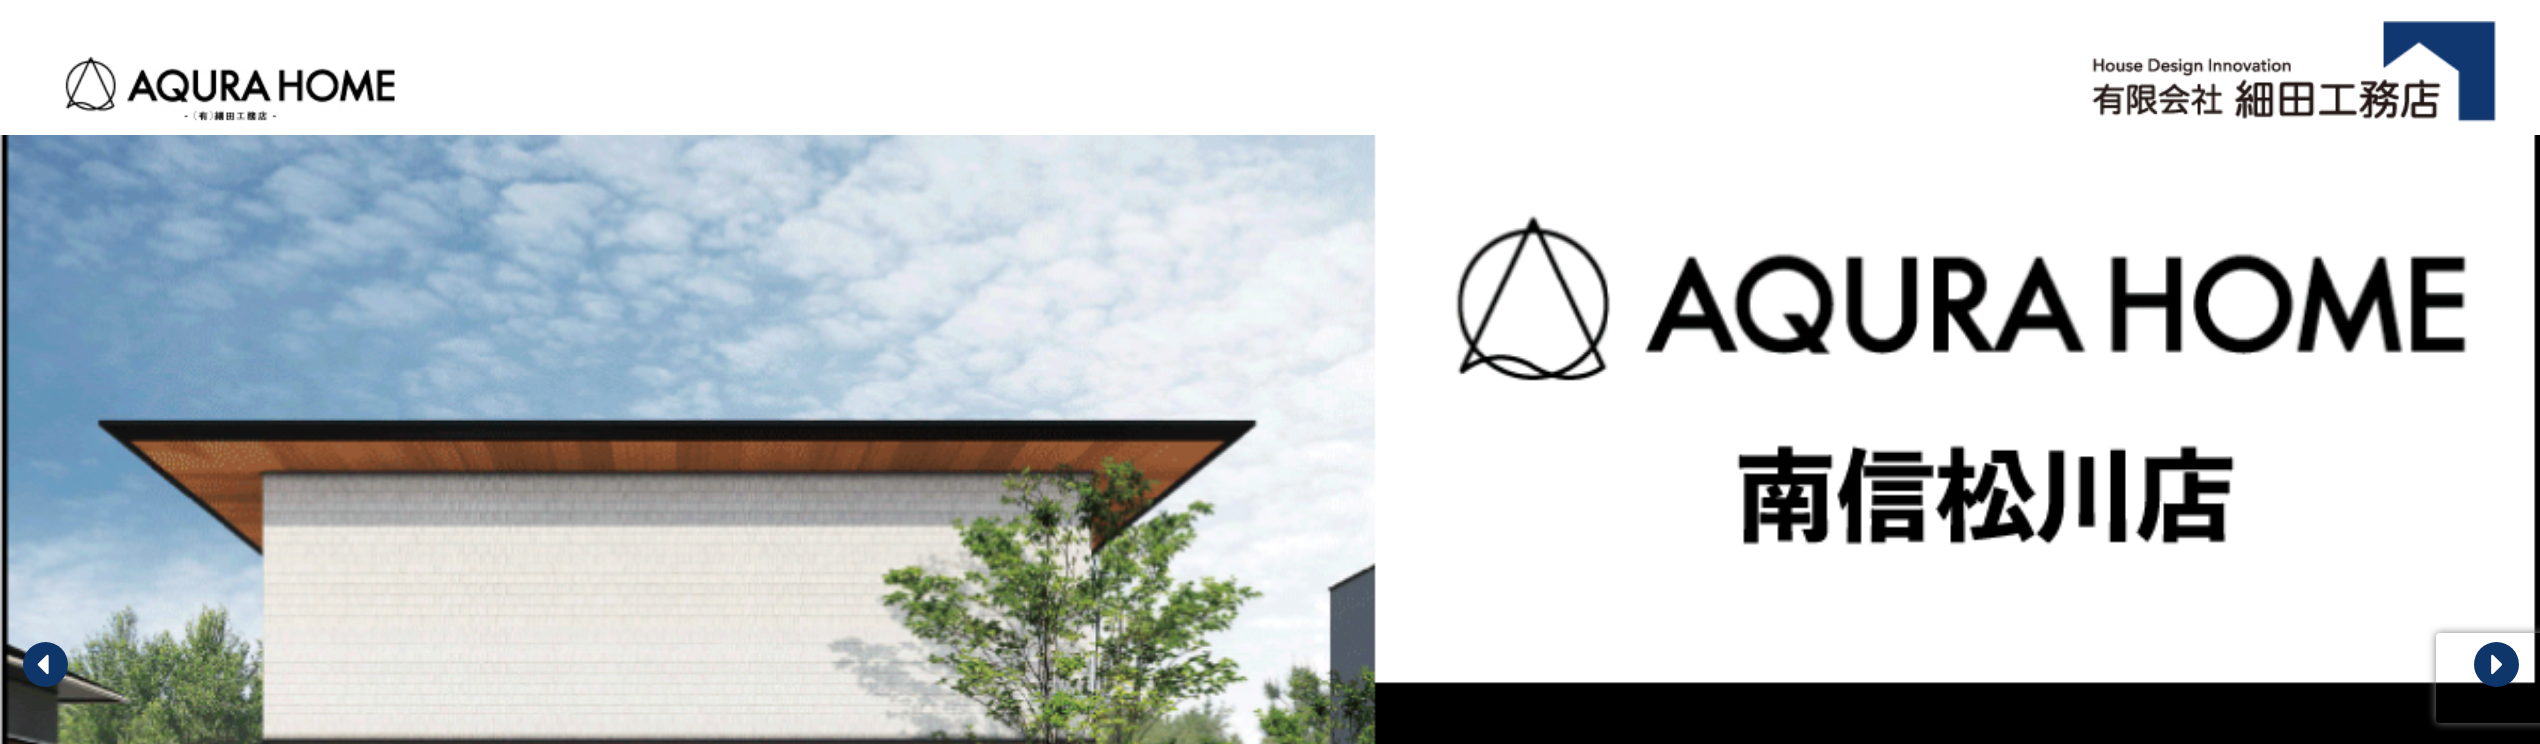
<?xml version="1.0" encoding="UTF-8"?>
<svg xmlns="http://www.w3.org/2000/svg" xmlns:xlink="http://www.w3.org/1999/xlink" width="2540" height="744">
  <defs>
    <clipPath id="clip1"><path d="M 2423 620 h 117 v 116 h -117 z m 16 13 h 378 c 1.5 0 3 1.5 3 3 v 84 c 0 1.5 -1.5 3 -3 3 h -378 c -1.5 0 -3 -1.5 -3 -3 v -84 c 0 -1.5 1.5 -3 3 -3 z" clip-rule="evenodd" /></clipPath>
  </defs>
  <rect width="100%" height="100%" fill="#ffffff" />
  <image x="65" y="56" width="330" height="65" xlink:href="image1.png" />
  <image x="2092" y="21" width="404" height="101" xlink:href="image2.png" />
  <image x="0" y="135" width="2540" height="609" xlink:href="image3.png" />
  <circle cx="45.5" cy="664.5" r="22.5" fill="#0f366b" />
  <image x="37" y="654" width="12" height="21" xlink:href="image4.png" />
  <circle cx="2496.5" cy="664.5" r="22.5" fill="#0f366b" />
  <image x="2491" y="654" width="12" height="21" xlink:href="image5.png" />
  <g clip-path="url(#clip1)">
    <rect x="2436" y="633" width="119" height="90" rx="3" fill="#808080" filter="blur(4px)" />
  </g>
</svg>
